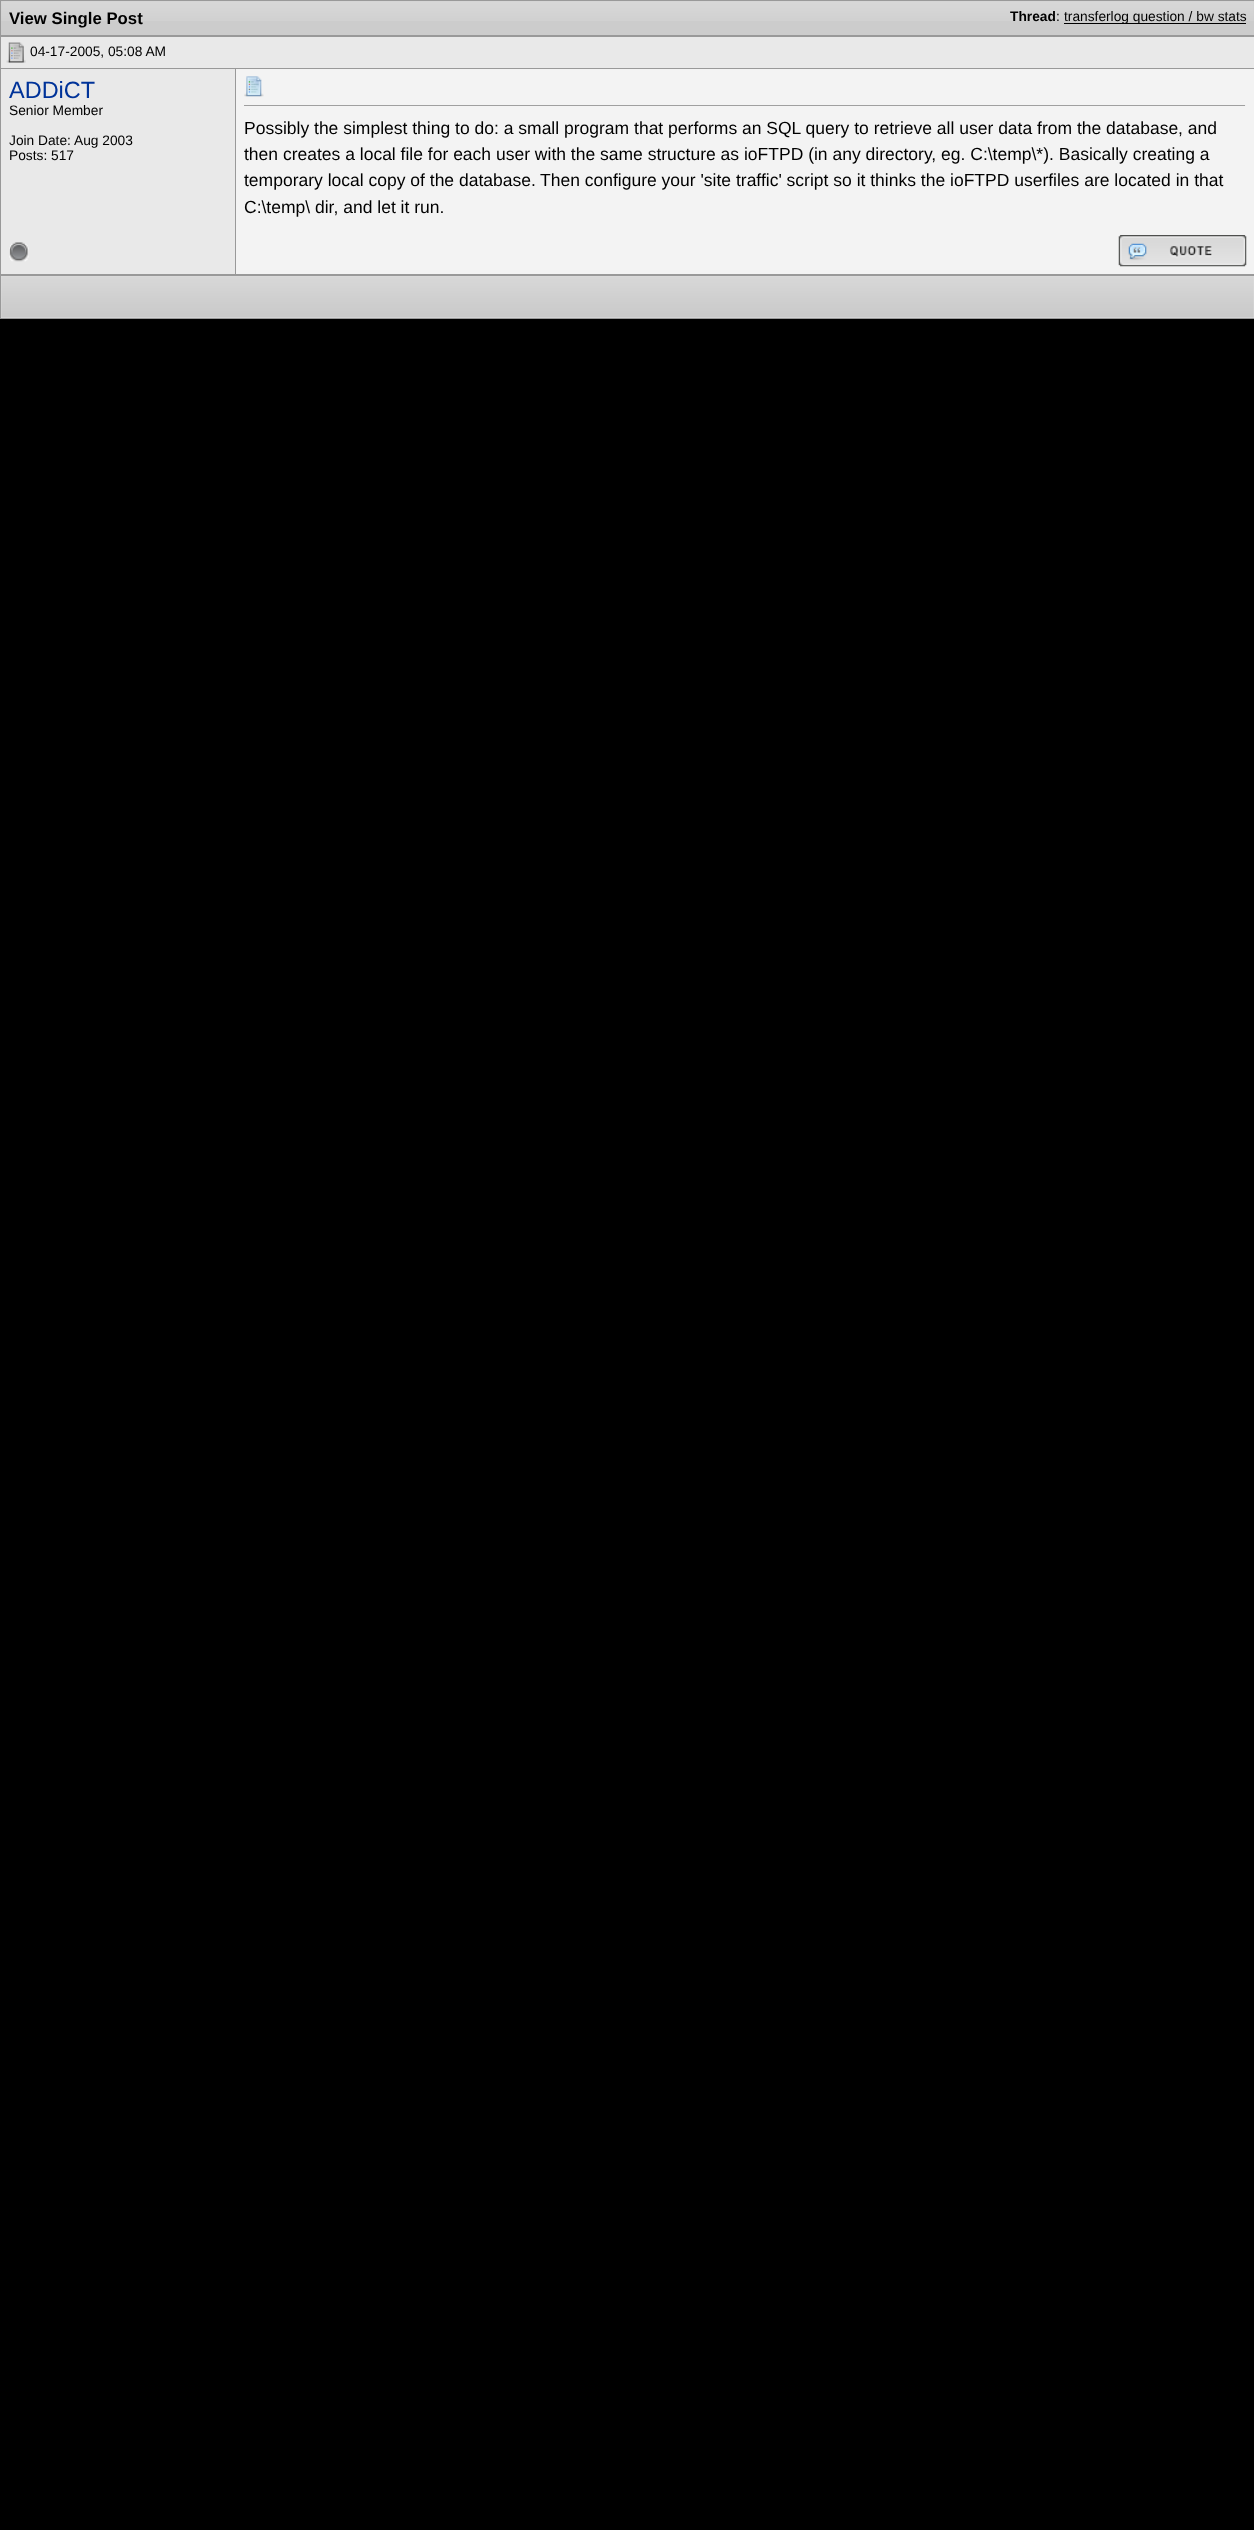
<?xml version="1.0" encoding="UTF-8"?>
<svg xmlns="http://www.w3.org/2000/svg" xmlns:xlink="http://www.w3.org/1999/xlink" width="1254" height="2530">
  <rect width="100%" height="100%" fill="#000000" />
  <rect width="1254" height="36" fill="#999999" />
  <rect x="1" y="1" width="1253" height="34" fill="#cccccc" />
  <image x="1" y="1" width="1253" height="20" xlink:href="image1.png" />
  <rect x="1064" y="23" width="182" height="1" fill="#000000" />
  <rect x="1" y="37" width="1253" height="31" fill="#e9e9e9" />
  <rect y="36" width="1254" height="1" fill="#999999" />
  <rect y="68" width="1254" height="1" fill="#999999" />
  <rect y="36" width="1" height="192" fill="#999999" />
  <image x="6" y="42" width="20" height="21" xlink:href="image2.png" />
  <rect x="1" y="69" width="234" height="205" fill="#e9e9e9" />
  <rect x="235" y="69" width="1" height="206" fill="#999999" />
  <rect x="236" y="69" width="1018" height="205" fill="#f3f3f3" />
  <image x="244" y="76" width="20" height="21" xlink:href="image3.png" />
  <rect x="244" y="105" width="1002" height="1" fill="#9f9f9f" />
  <rect x="1245" y="105" width="1" height="1" fill="#eeeeee" />
  <rect y="274" width="1254" height="45" fill="#999999" />
  <rect y="228" width="1" height="47" fill="#999999" />
  <image x="9" y="242" width="20" height="20" xlink:href="image4.png" />
  <image x="1118" y="235" width="129" height="32" xlink:href="image5.png" />
  <rect x="1" y="276" width="1253" height="42" fill="#e1e1e2" />
  <image x="1" y="276" width="1253" height="42" xlink:href="image6.png" />
  <text x="9" y="24" style="font-family: Liberation Sans; font-size: 16.75px; font-weight: bold; fill: #000000">View Single Post</text>
  <text x="1010" y="21" style="font-family: Liberation Sans; font-size: 13.75px; font-weight: bold; fill: #000000">Thread</text>
  <text x="1056" y="21" style="font-family: Liberation Sans; font-size: 13.75px; fill: #000000">:</text>
  <text x="1064" y="21" style="font-family: Liberation Sans; font-size: 13.75px; fill: #000000">transferlog question / bw stats</text>
  <text x="30" y="56" style="font-family: Liberation Sans; font-size: 13.75px; fill: #000000">04-17-2005, 05:08 AM</text>
  <text x="9" y="98" style="font-family: Liberation Sans; font-size: 23.5px; fill: #003399">ADDiCT</text>
  <text x="9" y="115" style="font-family: Liberation Sans; font-size: 13.75px; fill: #000000">Senior Member</text>
  <text x="9" y="145" style="font-family: Liberation Sans; font-size: 13.75px; fill: #000000">Join Date: Aug 2003</text>
  <text x="9" y="160" style="font-family: Liberation Sans; font-size: 13.75px; fill: #000000">Posts: 517</text>
  <text x="244" y="134" style="font-family: Liberation Sans; font-size: 17.5px; fill: #000000">Possibly the simplest thing to do: a small program that performs an SQL query to retrieve all user data from the database, and</text>
  <text x="244" y="160" style="font-family: Liberation Sans; font-size: 17.5px; fill: #000000">then creates a local file for each user with the same structure as ioFTPD (in any directory, eg. C:\temp\*). Basically creating a</text>
  <text x="244" y="186" style="font-family: Liberation Sans; font-size: 17.5px; fill: #000000">temporary local copy of the database.</text>
  <text x="540" y="186" style="font-family: Liberation Sans; font-size: 17.5px; fill: #000000">Then configure your 'site traffic' script so it thinks the ioFTPD userfiles are located in that</text>
  <text x="244" y="213" style="font-family: Liberation Sans; font-size: 17.5px; fill: #000000">C:\temp\ dir, and let it run.</text>
</svg>
